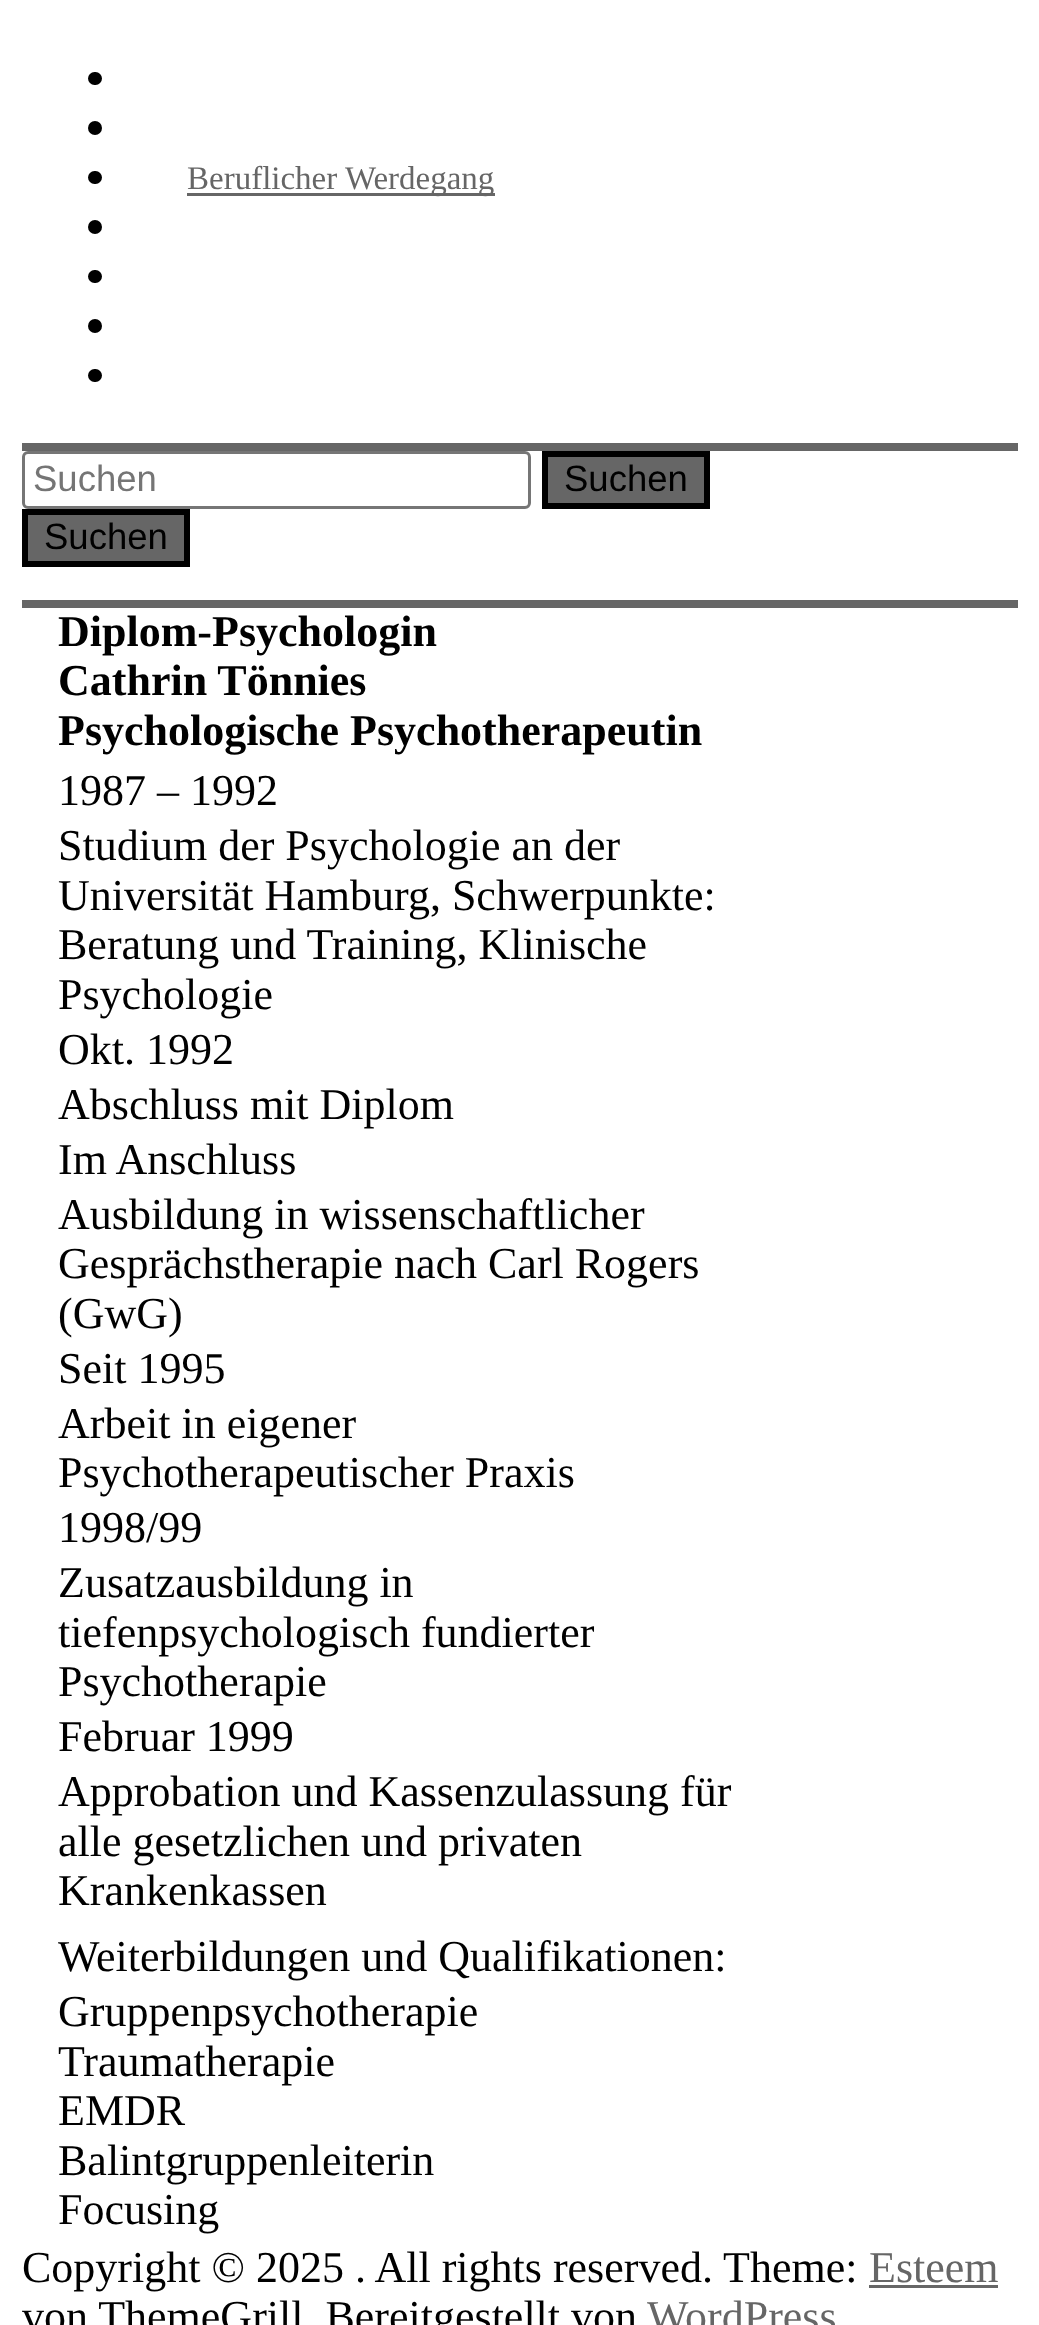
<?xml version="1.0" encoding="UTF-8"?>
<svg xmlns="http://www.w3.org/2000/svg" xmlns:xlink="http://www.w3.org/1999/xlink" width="1039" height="2325">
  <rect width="100%" height="100%" fill="#ffffff" />
  <rect x="88" y="72" width="14" height="13" rx="6.5" fill="#000000" />
  <circle cx="95" cy="128" r="7" fill="#000000" />
  <rect x="88" y="171" width="14" height="13" rx="6.5" fill="#000000" />
  <rect x="187" y="193" width="308" height="3" fill="#666666" />
  <circle cx="95" cy="227" r="7" fill="#000000" />
  <rect x="88" y="270" width="14" height="13" rx="6.5" fill="#000000" />
  <circle cx="95" cy="326" r="7" fill="#000000" />
  <rect x="88" y="369" width="14" height="13" rx="6.5" fill="#000000" />
  <rect x="22" y="443" width="996" height="8" fill="#666666" />
  <rect x="23.5" y="452.5" width="506" height="55" rx="4.5" fill="none" stroke="#767676" stroke-width="3" />
  <rect x="545" y="454" width="162" height="52" fill="#666666" stroke="#000000" stroke-width="6" />
  <rect x="25" y="512" width="162" height="52" fill="#666666" stroke="#000000" stroke-width="6" />
  <rect x="22" y="600" width="996" height="8" fill="#666666" />
  <rect x="869" y="2285" width="129" height="3" fill="#666666" />
  <text x="187" y="189" style="font-family: Liberation Serif; font-size: 33px; fill: #666666">Beruflicher Werdegang</text>
  <text x="33" y="491" style="font-family: Liberation Sans; font-size: 36.5px; fill: #757575">Suchen</text>
  <text x="564" y="491" style="font-family: Liberation Sans; font-size: 36.5px; fill: #000000">Suchen</text>
  <text x="44" y="549" style="font-family: Liberation Sans; font-size: 36.5px; fill: #000000">Suchen</text>
  <text x="58" y="646" style="font-family: Liberation Serif; font-size: 44px; font-weight: bold; fill: #000000">Diplom-Psychologin</text>
  <text x="58" y="695" style="font-family: Liberation Serif; font-size: 44px; font-weight: bold; fill: #000000">Cathrin Tönnies</text>
  <text x="58" y="745" style="font-family: Liberation Serif; font-size: 44px; font-weight: bold; fill: #000000">Psychologische Psychotherapeutin</text>
  <text x="58" y="805" style="font-family: Liberation Serif; font-size: 44px; fill: #000000">1987 – 1992</text>
  <text x="58" y="860" style="font-family: Liberation Serif; font-size: 44px; fill: #000000">Studium der Psychologie an der</text>
  <text x="58" y="910" style="font-family: Liberation Serif; font-size: 44px; fill: #000000">Universität Hamburg, Schwerpunkte:</text>
  <text x="58" y="959" style="font-family: Liberation Serif; font-size: 44px; fill: #000000">Beratung und Training, Klinische</text>
  <text x="58" y="1009" style="font-family: Liberation Serif; font-size: 44px; fill: #000000">Psychologie</text>
  <text x="58" y="1064" style="font-family: Liberation Serif; font-size: 44px; fill: #000000">Okt. 1992</text>
  <text x="58" y="1119" style="font-family: Liberation Serif; font-size: 44px; fill: #000000">Abschluss mit Diplom</text>
  <text x="58" y="1174" style="font-family: Liberation Serif; font-size: 44px; fill: #000000">Im Anschluss</text>
  <text x="58" y="1229" style="font-family: Liberation Serif; font-size: 44px; fill: #000000">Ausbildung in wissenschaftlicher</text>
  <text x="58" y="1278" style="font-family: Liberation Serif; font-size: 44px; fill: #000000">Gesprächstherapie nach Carl Rogers</text>
  <text x="58" y="1328" style="font-family: Liberation Serif; font-size: 44px; fill: #000000">(GwG)</text>
  <text x="58" y="1383" style="font-family: Liberation Serif; font-size: 44px; fill: #000000">Seit 1995</text>
  <text x="58" y="1438" style="font-family: Liberation Serif; font-size: 44px; fill: #000000">Arbeit in eigener</text>
  <text x="58" y="1487" style="font-family: Liberation Serif; font-size: 44px; fill: #000000">Psychotherapeutischer Praxis</text>
  <text x="58" y="1542" style="font-family: Liberation Serif; font-size: 44px; fill: #000000">1998/99</text>
  <text x="58" y="1597" style="font-family: Liberation Serif; font-size: 44px; fill: #000000">Zusatzausbildung in</text>
  <text x="58" y="1647" style="font-family: Liberation Serif; font-size: 44px; fill: #000000">tiefenpsychologisch fundierter</text>
  <text x="58" y="1696" style="font-family: Liberation Serif; font-size: 44px; fill: #000000">Psychotherapie</text>
  <text x="58" y="1751" style="font-family: Liberation Serif; font-size: 44px; fill: #000000">Februar 1999</text>
  <text x="58" y="1806" style="font-family: Liberation Serif; font-size: 44px; fill: #000000">Approbation und Kassenzulassung für</text>
  <text x="58" y="1856" style="font-family: Liberation Serif; font-size: 44px; fill: #000000">alle gesetzlichen und privaten</text>
  <text x="58" y="1905" style="font-family: Liberation Serif; font-size: 44px; fill: #000000">Krankenkassen</text>
  <text x="58" y="1971" style="font-family: Liberation Serif; font-size: 44px; fill: #000000">Weiterbildungen und Qualifikationen:</text>
  <text x="58" y="2026" style="font-family: Liberation Serif; font-size: 44px; fill: #000000">Gruppenpsychotherapie</text>
  <text x="58" y="2076" style="font-family: Liberation Serif; font-size: 44px; fill: #000000">Traumatherapie</text>
  <text x="58" y="2125" style="font-family: Liberation Serif; font-size: 44px; fill: #000000">EMDR</text>
  <text x="58" y="2175" style="font-family: Liberation Serif; font-size: 44px; fill: #000000">Balintgruppenleiterin</text>
  <text x="58" y="2224" style="font-family: Liberation Serif; font-size: 44px; fill: #000000">Focusing</text>
  <text x="22" y="2282" style="font-family: Liberation Serif; font-size: 44px; fill: #000000">Copyright © 2025 . All rights reserved. Theme:</text>
  <text x="869" y="2282" style="font-family: Liberation Serif; font-size: 44px; fill: #666666">Esteem</text>
  <text x="22" y="2331" style="font-family: Liberation Serif; font-size: 44px; fill: #000000">von ThemeGrill. Bereitgestellt von</text>
  <text x="647" y="2331" style="font-family: Liberation Serif; font-size: 44px; fill: #666666">WordPress</text>
</svg>
